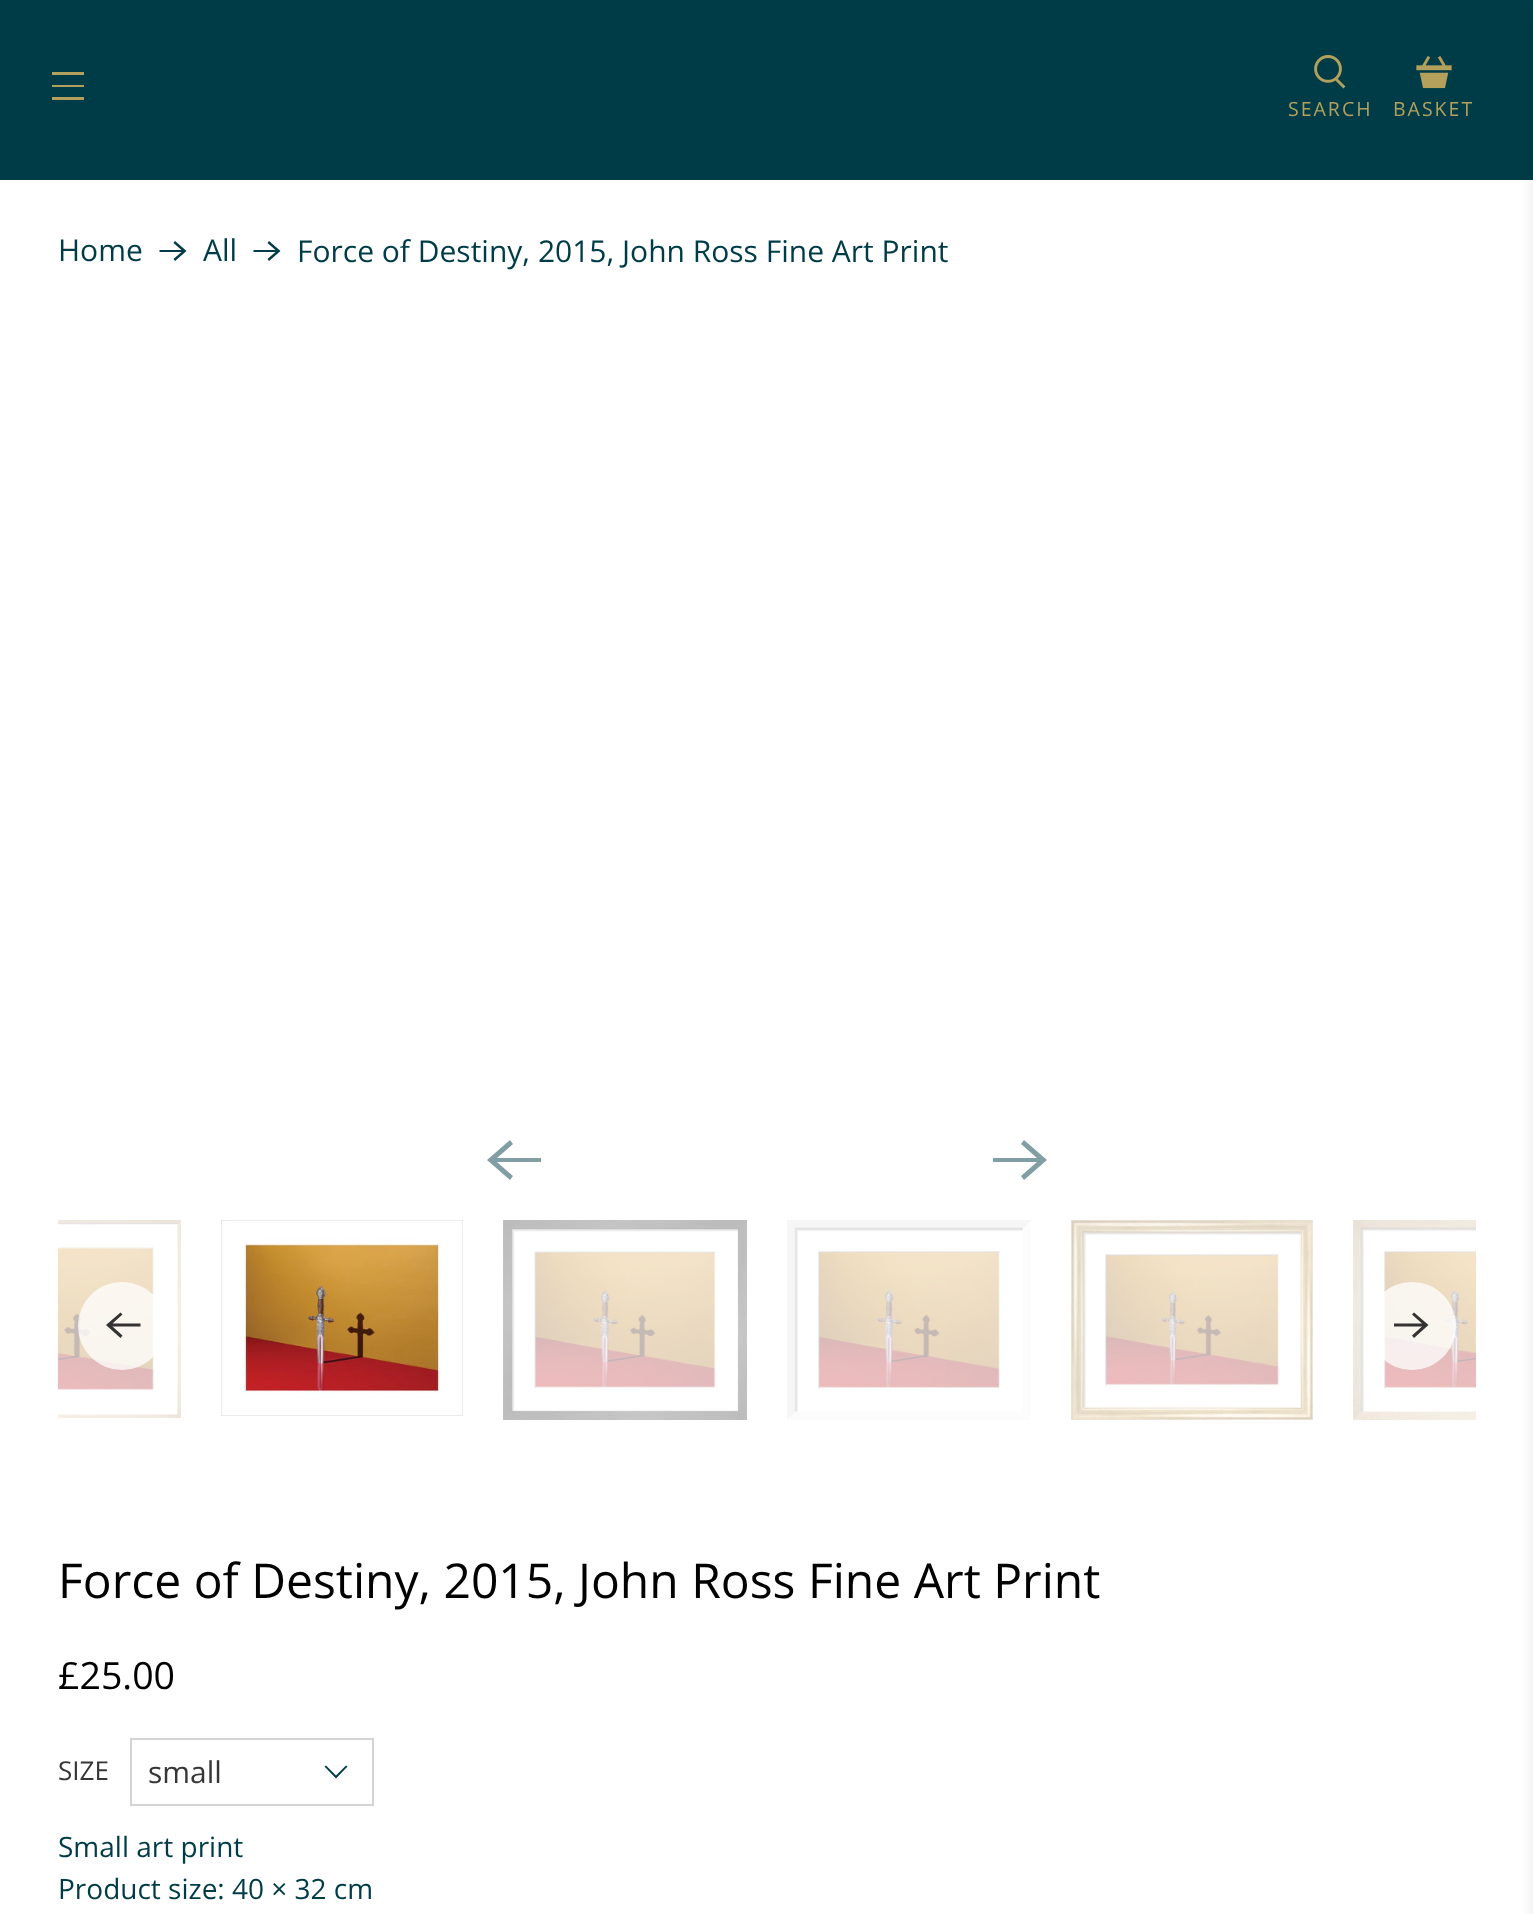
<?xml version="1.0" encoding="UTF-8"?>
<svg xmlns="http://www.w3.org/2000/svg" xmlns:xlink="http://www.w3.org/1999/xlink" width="1533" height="1914">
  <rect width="100%" height="100%" fill="#ffffff" />
  <rect width="1533" height="180" fill="#003c47" />
  <rect x="52" y="72" width="32" height="3" fill="#b3a05c" />
  <rect x="52" y="85" width="32" height="2" fill="#b3a05c" />
  <rect x="52" y="97" width="32" height="3" fill="#b3a05c" />
  <image x="1314" y="55" width="32" height="34" xlink:href="image1.png" />
  <image x="1416" y="56" width="36" height="33" xlink:href="image2.png" />
  <rect x="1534" y="16" width="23" height="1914" fill="#0a0a0a" fill-opacity="0.1" filter="blur(8px)" />
  <path d="M 175 241 l -1.5 2 l 8 7 h -22 v 2 h 22 l -8 7 l 1.5 2 l 11.5 -10 z" fill="#003c47" />
  <path d="M 269 241 l -1.5 2 l 8 7 h -22 v 2 h 22 l -8 7 l 1.5 2 l 11.5 -10 z" fill="#003c47" />
  <path d="M 541 1158 h -44 l 16 -14 l -3 -4 l -23 20 l 23 20 l 3 -4 l -16 -14 h 44 z" fill="#809ea3" />
  <path d="M 993 1162 h 44 l -16 14 l 3 4 l 23 -20 l -23 -20 l -3 4 l 16 14 h -44 z" fill="#809ea3" />
  <image x="58" y="1220" width="123" height="198" xlink:href="image3.png" />
  <image x="221" y="1220" width="242" height="196" xlink:href="image4.png" />
  <image x="503" y="1220" width="244" height="200" xlink:href="image5.png" />
  <image x="787" y="1220" width="244" height="200" xlink:href="image6.png" />
  <image x="1071" y="1220" width="242" height="200" xlink:href="image7.png" />
  <image x="1353" y="1220" width="123" height="200" xlink:href="image8.png" />
  <circle cx="122" cy="1326" r="44" fill="#ffffff" fill-opacity="0.75" />
  <path d="M 140.5 1323.5 h -28 l 10 -9 l -2 -2 l -14.5 12.5 l 14.5 13 l 2 -2.5 l -10 -9 h 28 z" fill="#333333" />
  <circle cx="1412" cy="1326" r="44" fill="#ffffff" fill-opacity="0.75" />
  <path d="M 1394 1326.5 h 28 l -10 9 l 2 2.5 l 14.5 -13 l -14.5 -12.5 l -2 2 l 10 9 h -28 z" fill="#333333" />
  <rect x="131" y="1739" width="242" height="66" fill="none" stroke="#d3d3d3" stroke-width="2" />
  <path d="M 336 1778.5 l -11.5 -12 l 1.5 -1 l 10 10 l 10 -10 l 1.5 1 z" fill="#003c47" />
  <text x="1288" y="116" style="font-family: Open Sans; font-size: 19.5px; letter-spacing: 2px; fill: #b3a05c">SEARCH</text>
  <text x="1393" y="116" style="font-family: Open Sans; font-size: 19.5px; letter-spacing: 2px; fill: #b3a05c">BASKET</text>
  <text x="58" y="261" style="font-family: Open Sans; font-size: 30px; fill: #003c47">Home</text>
  <text x="203" y="261" style="font-family: Open Sans; font-size: 30px; fill: #003c47">All</text>
  <text x="297" y="262" style="font-family: Open Sans; font-size: 30px; fill: #003c47">Force of Destiny, 2015, John Ross Fine Art Print</text>
  <text x="58" y="1598" style="font-family: Open Sans; font-size: 48px; fill: #000000">Force of Destiny, 2015, John Ross Fine Art Print</text>
  <text x="58" y="1689" style="font-family: Open Sans; font-size: 37.5px; fill: #000000">£25.00</text>
  <text x="58" y="1780" style="font-family: Open Sans; font-size: 26px; fill: #363636">SIZE</text>
  <text x="148" y="1783" style="font-family: Open Sans; font-size: 30px; fill: #363636">small</text>
  <text x="58" y="1857" style="font-family: Open Sans; font-size: 28px; fill: #003c47">Small art print</text>
  <text x="58" y="1899" style="font-family: Open Sans; font-size: 28px; fill: #003c47">Product size: 40 × 32 cm</text>
</svg>
